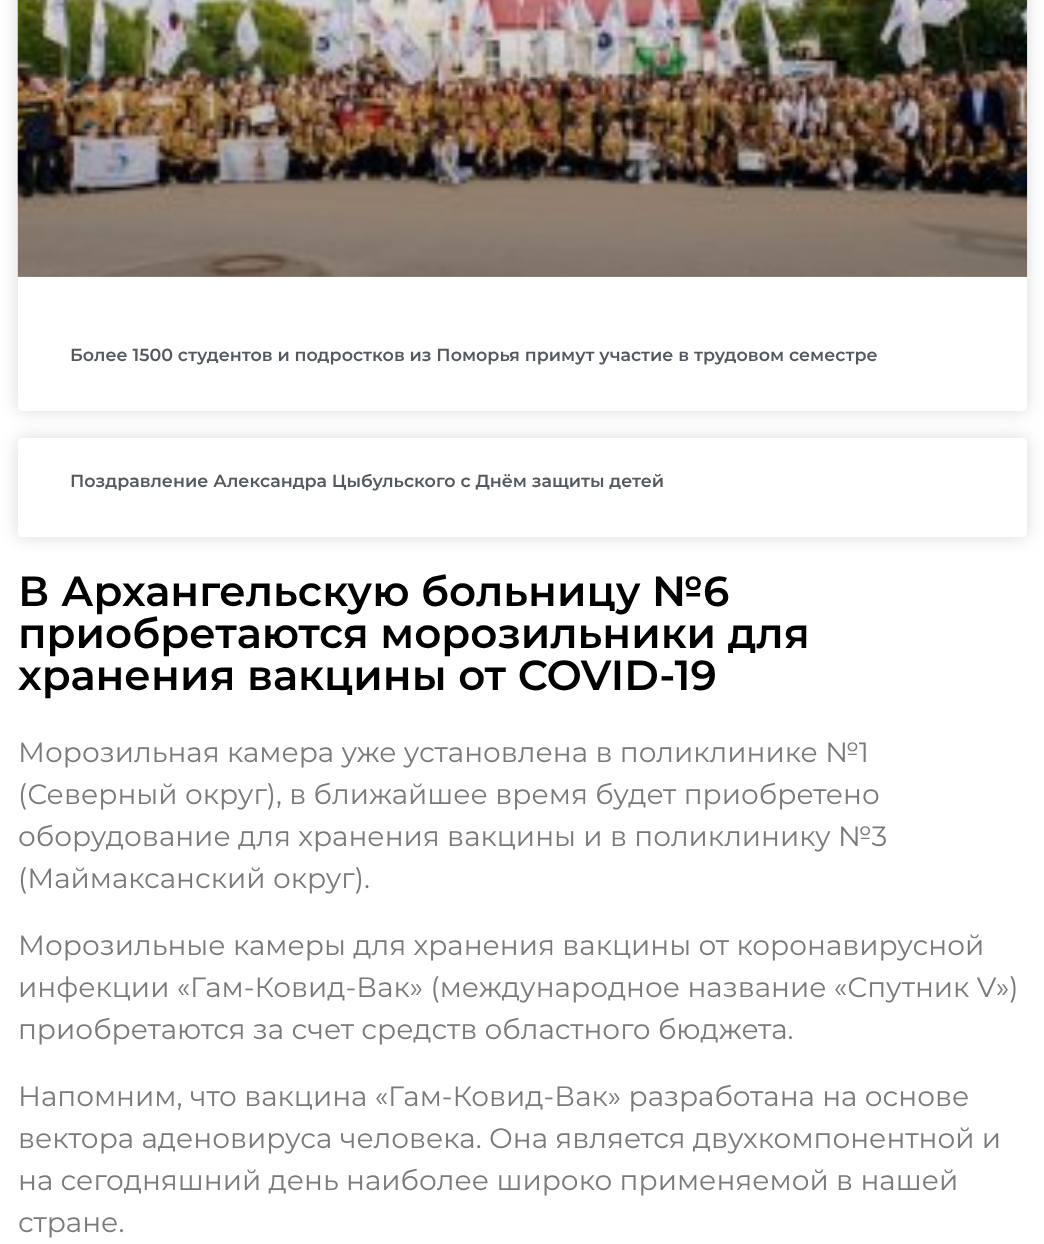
<?xml version="1.0" encoding="UTF-8"?>
<svg xmlns="http://www.w3.org/2000/svg" xmlns:xlink="http://www.w3.org/1999/xlink" width="1044" height="1244">
  <defs>
    <clipPath id="clip1"><path d="M 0 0 h 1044 v 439 h -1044 z m 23 -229 h 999 c 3 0 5 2 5 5 v 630 c 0 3 -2 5 -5 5 h -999 c -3 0 -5 -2 -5 -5 v -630 c 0 -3 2 -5 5 -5 z" clip-rule="evenodd" /></clipPath>
    <linearGradient id="g1" gradientUnits="userSpaceOnUse" x1="522" y1="277" x2="522" y2="-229"><stop offset="0" stop-color="#000000" stop-opacity="0.35" /><stop offset="0.75" stop-color="#000000" stop-opacity="0" /></linearGradient>
    <clipPath id="clip2"><path d="M 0 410 h 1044 v 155 h -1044 z m 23 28 h 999 c 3 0 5 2 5 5 v 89 c 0 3 -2 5 -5 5 h -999 c -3 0 -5 -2 -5 -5 v -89 c 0 -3 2 -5 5 -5 z" clip-rule="evenodd" /></clipPath>
  </defs>
  <rect width="100%" height="100%" fill="#ffffff" />
  <g clip-path="url(#clip1)">
    <rect x="18" y="-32" width="1009" height="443" rx="5" fill="#000000" fill-opacity="0.15" filter="blur(9px)" />
  </g>
  <image x="17" y="0" width="1011" height="277" xlink:href="image1.png" />
  <rect x="18" width="1009" height="277" fill="url(#g1)" />
  <g clip-path="url(#clip2)">
    <rect x="18" y="438" width="1009" height="99" rx="5" fill="#000000" fill-opacity="0.15" filter="blur(9px)" />
  </g>
  <text x="70" y="361" style="font-family: Montserrat; font-size: 17.5px; font-weight: 600; fill: #54595f">Более 1500 студентов и подростков из Поморья примут участие в трудовом семестре</text>
  <text x="70" y="487" style="font-family: Montserrat; font-size: 17.5px; font-weight: 600; fill: #54595f">Поздравление Александра Цыбульского с Днём защиты детей</text>
  <text x="18" y="606" style="font-family: Montserrat; font-size: 42px; font-weight: 600; fill: #000000">В Архангельскую больницу №6</text>
  <text x="18" y="648" style="font-family: Montserrat; font-size: 42px; font-weight: 600; fill: #000000">приобретаются морозильники для</text>
  <text x="18" y="690" style="font-family: Montserrat; font-size: 42px; font-weight: 600; fill: #000000">хранения вакцины от COVID-19</text>
  <text x="18" y="762" style="font-family: Montserrat; font-size: 28px; fill: #7a7a7a">Морозильная камера уже установлена в поликлинике №1</text>
  <text x="18" y="804" style="font-family: Montserrat; font-size: 28px; fill: #7a7a7a">(Северный округ), в ближайшее время будет приобретено</text>
  <text x="18" y="846" style="font-family: Montserrat; font-size: 28px; fill: #7a7a7a">оборудование для хранения вакцины и в поликлинику №3</text>
  <text x="18" y="888" style="font-family: Montserrat; font-size: 28px; fill: #7a7a7a">(Маймаксанский округ).</text>
  <text x="18" y="955" style="font-family: Montserrat; font-size: 28px; fill: #7a7a7a">Морозильные камеры для хранения вакцины от коронавирусной</text>
  <text x="18" y="997" style="font-family: Montserrat; font-size: 28px; fill: #7a7a7a">инфекции «Гам-Ковид-Вак» (международное название «Спутник V»)</text>
  <text x="18" y="1039" style="font-family: Montserrat; font-size: 28px; fill: #7a7a7a">приобретаются за счет средств областного бюджета.</text>
  <text x="18" y="1106" style="font-family: Montserrat; font-size: 28px; fill: #7a7a7a">Напомним, что вакцина «Гам-Ковид-Вак» разработана на основе</text>
  <text x="18" y="1148" style="font-family: Montserrat; font-size: 28px; fill: #7a7a7a">вектора аденовируса человека. Она является двухкомпонентной и</text>
  <text x="18" y="1190" style="font-family: Montserrat; font-size: 28px; fill: #7a7a7a">на сегодняшний день наиболее широко применяемой в нашей</text>
  <text x="18" y="1232" style="font-family: Montserrat; font-size: 28px; fill: #7a7a7a">стране.</text>
</svg>
